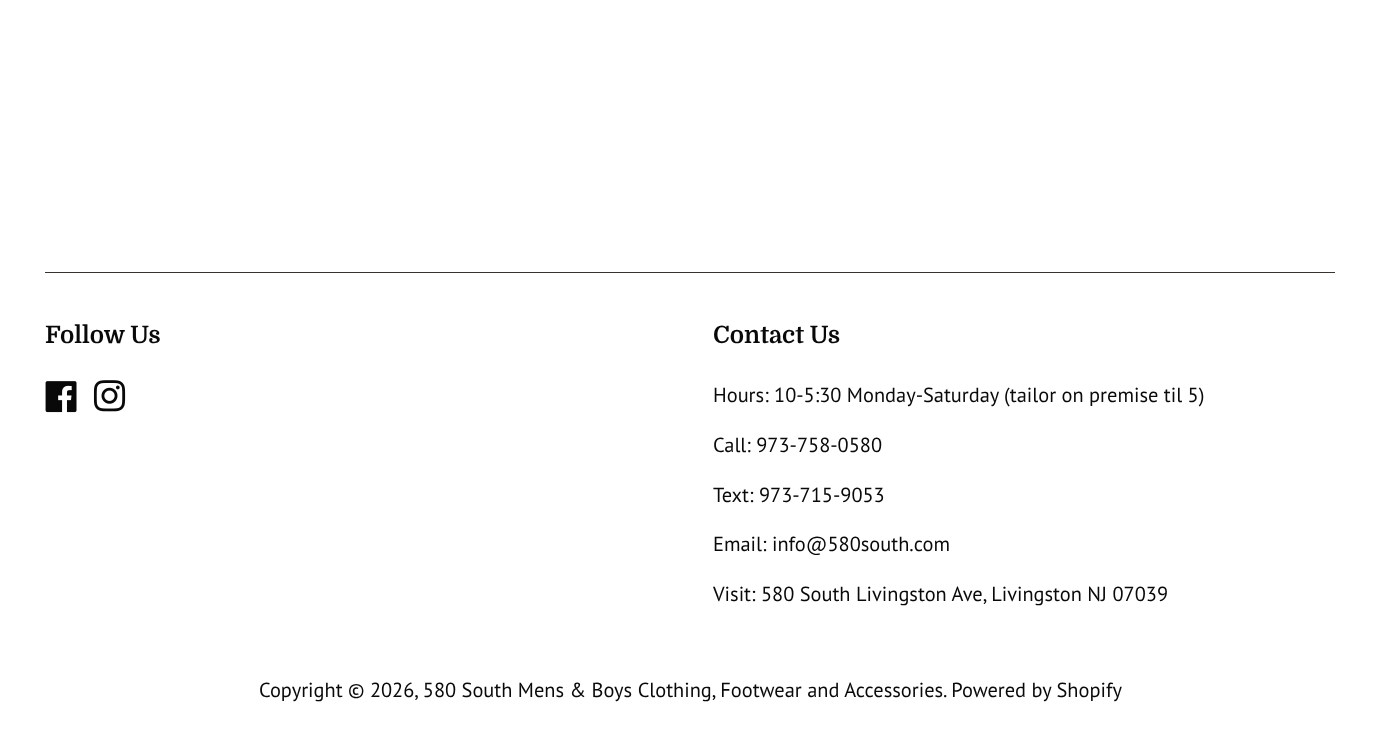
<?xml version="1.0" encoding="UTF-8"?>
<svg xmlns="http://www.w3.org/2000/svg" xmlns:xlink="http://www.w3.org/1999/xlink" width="1380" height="752">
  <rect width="100%" height="100%" fill="#ffffff" />
  <rect x="45" y="272" width="1290" height="1" fill="#373330" />
  <image x="45" y="381" width="32" height="32" xlink:href="image1.png" />
  <image x="93" y="380" width="33" height="32" xlink:href="image2.png" />
  <text x="45" y="343" style="font-family: Domine; font-size: 24px; font-weight: bold; fill: #0a0909">Follow Us</text>
  <text x="713" y="343" style="font-family: Domine; font-size: 24px; font-weight: bold; fill: #0a0909">Contact Us</text>
  <text x="713" y="402" style="font-family: PT Sans; font-size: 20.4px; fill: #0a0909">Hours: 10-5:30 Monday-Saturday (tailor on premise til 5)</text>
  <text x="713" y="452" style="font-family: PT Sans; font-size: 20.4px; fill: #0a0909">Call: 973-758-0580</text>
  <text x="713" y="502" style="font-family: PT Sans; font-size: 20.4px; fill: #0a0909">Text: 973-715-9053</text>
  <text x="713" y="551" style="font-family: PT Sans; font-size: 20.4px; fill: #0a0909">Email: info@580south.com</text>
  <text x="713" y="601" style="font-family: PT Sans; font-size: 20.4px; fill: #0a0909">Visit: 580 South Livingston Ave, Livingston NJ 07039</text>
  <text x="259" y="697" style="font-family: PT Sans; font-size: 20.4px; fill: #0a0909">Copyright © 2026, 580 South Mens &amp; Boys Clothing, Footwear and Accessories. Powered by Shopify</text>
</svg>
